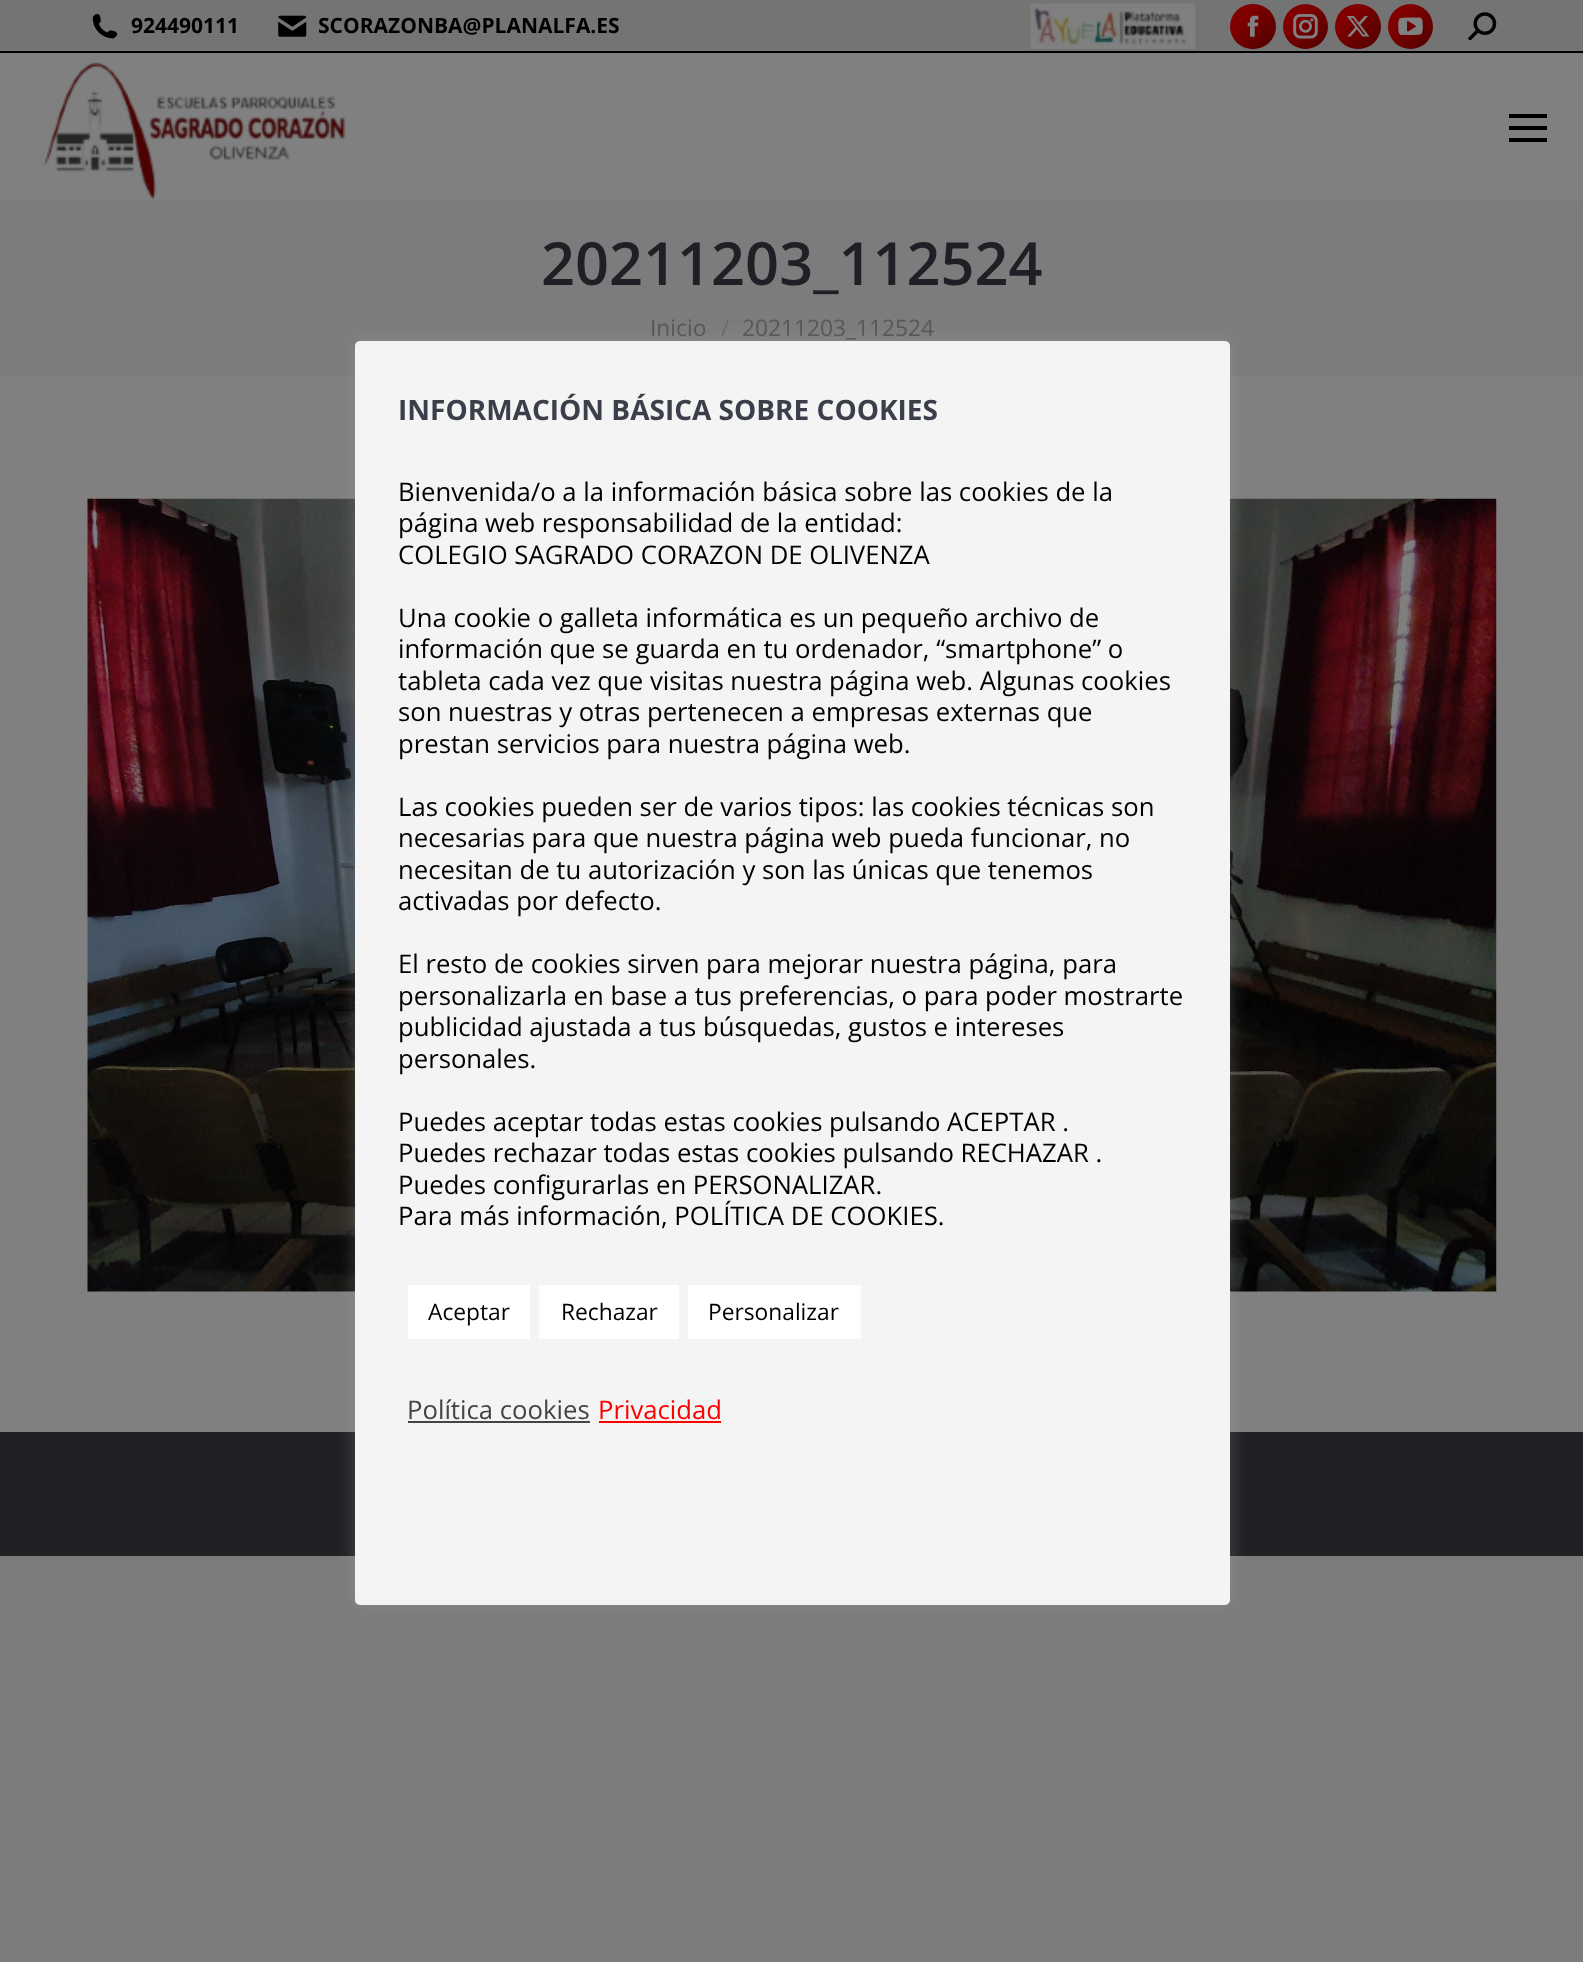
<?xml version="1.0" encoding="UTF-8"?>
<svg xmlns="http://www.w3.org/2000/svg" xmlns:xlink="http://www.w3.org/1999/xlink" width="1583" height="1962">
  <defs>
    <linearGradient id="g1" gradientUnits="userSpaceOnUse" x1="1230" y1="3.5" x2="1276" y2="49"><stop offset="0.3" stop-color="#800000" /><stop offset="1" stop-color="#4d0100" /></linearGradient>
    <linearGradient id="g2" gradientUnits="userSpaceOnUse" x1="1283" y1="3.5" x2="1328" y2="49"><stop offset="0.3" stop-color="#800000" /><stop offset="1" stop-color="#4d0100" /></linearGradient>
    <linearGradient id="g3" gradientUnits="userSpaceOnUse" x1="1335" y1="3.5" x2="1381" y2="49"><stop offset="0.3" stop-color="#800000" /><stop offset="1" stop-color="#4d0100" /></linearGradient>
    <linearGradient id="g4" gradientUnits="userSpaceOnUse" x1="1388" y1="3.5" x2="1433" y2="49"><stop offset="0.3" stop-color="#800000" /><stop offset="1" stop-color="#4d0100" /></linearGradient>
  </defs>
  <rect width="100%" height="100%" fill="#7c7c7d" />
  <rect y="53" width="1583" height="1379" fill="#808080" />
  <rect width="1583" height="51" fill="#747474" />
  <image x="92" y="14" width="26" height="25" xlink:href="image1.png" />
  <image x="278" y="15" width="29" height="22" xlink:href="image2.png" />
  <image x="1030" y="3" width="166" height="46" xlink:href="image3.png" />
  <rect x="1230" y="4" width="46" height="45" rx="22.5" fill="url(#g1)" />
  <image x="1247" y="15" width="12" height="22" xlink:href="image4.png" />
  <circle cx="1305.5" cy="26.5" r="22.5" fill="url(#g2)" />
  <image x="1293" y="14" width="25" height="25" xlink:href="image5.png" />
  <rect x="1335" y="4" width="46" height="45" rx="22.5" fill="url(#g3)" />
  <image x="1346" y="16" width="24" height="21" xlink:href="image6.png" />
  <circle cx="1410.5" cy="26.5" r="22.5" fill="url(#g4)" />
  <image x="1398" y="17" width="25" height="18" xlink:href="image7.png" />
  <image x="1468" y="12" width="29" height="29" xlink:href="image8.png" />
  <rect y="51" width="1583" height="2" fill="#000000" />
  <image x="43" y="62" width="303" height="138" xlink:href="image9.png" />
  <rect x="1509" y="114" width="38" height="4" fill="#000000" />
  <rect x="1509" y="126" width="38" height="4" fill="#000000" />
  <rect x="1509" y="138" width="38" height="4" fill="#000000" />
  <rect y="201" width="1583" height="175" fill="#7c7c7d" />
  <image x="87" y="498" width="1410" height="794" xlink:href="image10.png" />
  <rect y="1432" width="1583" height="124" fill="#202124" />
  <rect x="355" y="340" width="875" height="1263" rx="5" fill="#acabab" fill-opacity="0.3" filter="blur(9px)" />
  <rect x="355" y="341" width="875" height="1264" rx="5" fill="#f4f4f4" />
  <rect x="408" y="1285" width="122" height="54" fill="#ffffff" />
  <rect x="539" y="1285" width="140" height="54" fill="#ffffff" />
  <rect x="688" y="1285" width="173" height="54" fill="#ffffff" />
  <rect x="408" y="1421" width="182" height="2" fill="#444444" />
  <rect x="599" y="1421" width="122" height="2" fill="#ff0000" />
  <text x="131" y="33" style="font-family: Open Sans; font-size: 21px; font-weight: bold; fill: #000000">924490111</text>
  <text x="318" y="33" style="font-family: Open Sans; font-size: 21px; font-weight: bold; fill: #000000">SCORAZONBA@PLANALFA.ES</text>
  <text x="541" y="285" style="font-family: Open Sans; font-size: 59.5px; font-weight: 600; fill: #1e2025">20211203_112524</text>
  <text x="650" y="336" style="font-family: Open Sans; font-size: 22.75px; fill: #57585b">Inicio</text>
  <text x="721" y="336" style="font-family: Open Sans; font-size: 22.75px; fill: #6a6a6c">/</text>
  <text x="742" y="336" style="font-family: Open Sans; font-size: 22.75px; fill: #57585b">20211203_112524</text>
  <text x="398" y="420" style="font-family: Open Sans; font-size: 28px; font-weight: bold; fill: #3b3f4a">INFORMACIÓN BÁSICA SOBRE COOKIES</text>
  <text x="398" y="501" style="font-family: Open Sans; font-size: 25.7px; fill: #000000">Bienvenida/o a la información básica sobre las cookies de la</text>
  <text x="398" y="532" style="font-family: Open Sans; font-size: 25.7px; fill: #000000">página web responsabilidad de la entidad:</text>
  <text x="398" y="564" style="font-family: Open Sans; font-size: 25.7px; fill: #000000">COLEGIO SAGRADO CORAZON DE OLIVENZA</text>
  <text x="398" y="627" style="font-family: Open Sans; font-size: 25.7px; fill: #000000">Una cookie o galleta informática es un pequeño archivo de</text>
  <text x="398" y="658" style="font-family: Open Sans; font-size: 25.7px; fill: #000000">información que se guarda en tu ordenador, “smartphone” o</text>
  <text x="398" y="690" style="font-family: Open Sans; font-size: 25.7px; fill: #000000">tableta cada vez que visitas nuestra página web. Algunas cookies</text>
  <text x="398" y="721" style="font-family: Open Sans; font-size: 25.7px; fill: #000000">son nuestras y otras pertenecen a empresas externas que</text>
  <text x="398" y="753" style="font-family: Open Sans; font-size: 25.7px; fill: #000000">prestan servicios para nuestra página web.</text>
  <text x="398" y="816" style="font-family: Open Sans; font-size: 25.7px; fill: #000000">Las cookies pueden ser de varios tipos: las cookies técnicas son</text>
  <text x="398" y="847" style="font-family: Open Sans; font-size: 25.7px; fill: #000000">necesarias para que nuestra página web pueda funcionar, no</text>
  <text x="398" y="879" style="font-family: Open Sans; font-size: 25.7px; fill: #000000">necesitan de tu autorización y son las únicas que tenemos</text>
  <text x="398" y="910" style="font-family: Open Sans; font-size: 25.7px; fill: #000000">activadas por defecto.</text>
  <text x="398" y="973" style="font-family: Open Sans; font-size: 25.7px; fill: #000000">El resto de cookies sirven para mejorar nuestra página, para</text>
  <text x="398" y="1005" style="font-family: Open Sans; font-size: 25.7px; fill: #000000">personalizarla en base a tus preferencias, o para poder mostrarte</text>
  <text x="398" y="1036" style="font-family: Open Sans; font-size: 25.7px; fill: #000000">publicidad ajustada a tus búsquedas, gustos e intereses</text>
  <text x="398" y="1068" style="font-family: Open Sans; font-size: 25.7px; fill: #000000">personales.</text>
  <text x="398" y="1131" style="font-family: Open Sans; font-size: 25.7px; fill: #000000">Puedes aceptar todas estas cookies pulsando ACEPTAR .</text>
  <text x="398" y="1162" style="font-family: Open Sans; font-size: 25.7px; fill: #000000">Puedes rechazar todas estas cookies pulsando RECHAZAR .</text>
  <text x="398" y="1194" style="font-family: Open Sans; font-size: 25.7px; fill: #000000">Puedes configurarlas en PERSONALIZAR.</text>
  <text x="398" y="1225" style="font-family: Open Sans; font-size: 25.7px; fill: #000000">Para más información, POLÍTICA DE COOKIES.</text>
  <text x="428" y="1320" style="font-family: Open Sans; font-size: 22.75px; fill: #000000">Aceptar</text>
  <text x="561" y="1320" style="font-family: Open Sans; font-size: 22.75px; fill: #000000">Rechazar</text>
  <text x="708" y="1320" style="font-family: Open Sans; font-size: 22.75px; fill: #000000">Personalizar</text>
  <text x="407" y="1419" style="font-family: Open Sans; font-size: 25.7px; fill: #444444">Política cookies</text>
  <text x="598" y="1419" style="font-family: Open Sans; font-size: 25.7px; fill: #ff0000">Privacidad</text>
</svg>
